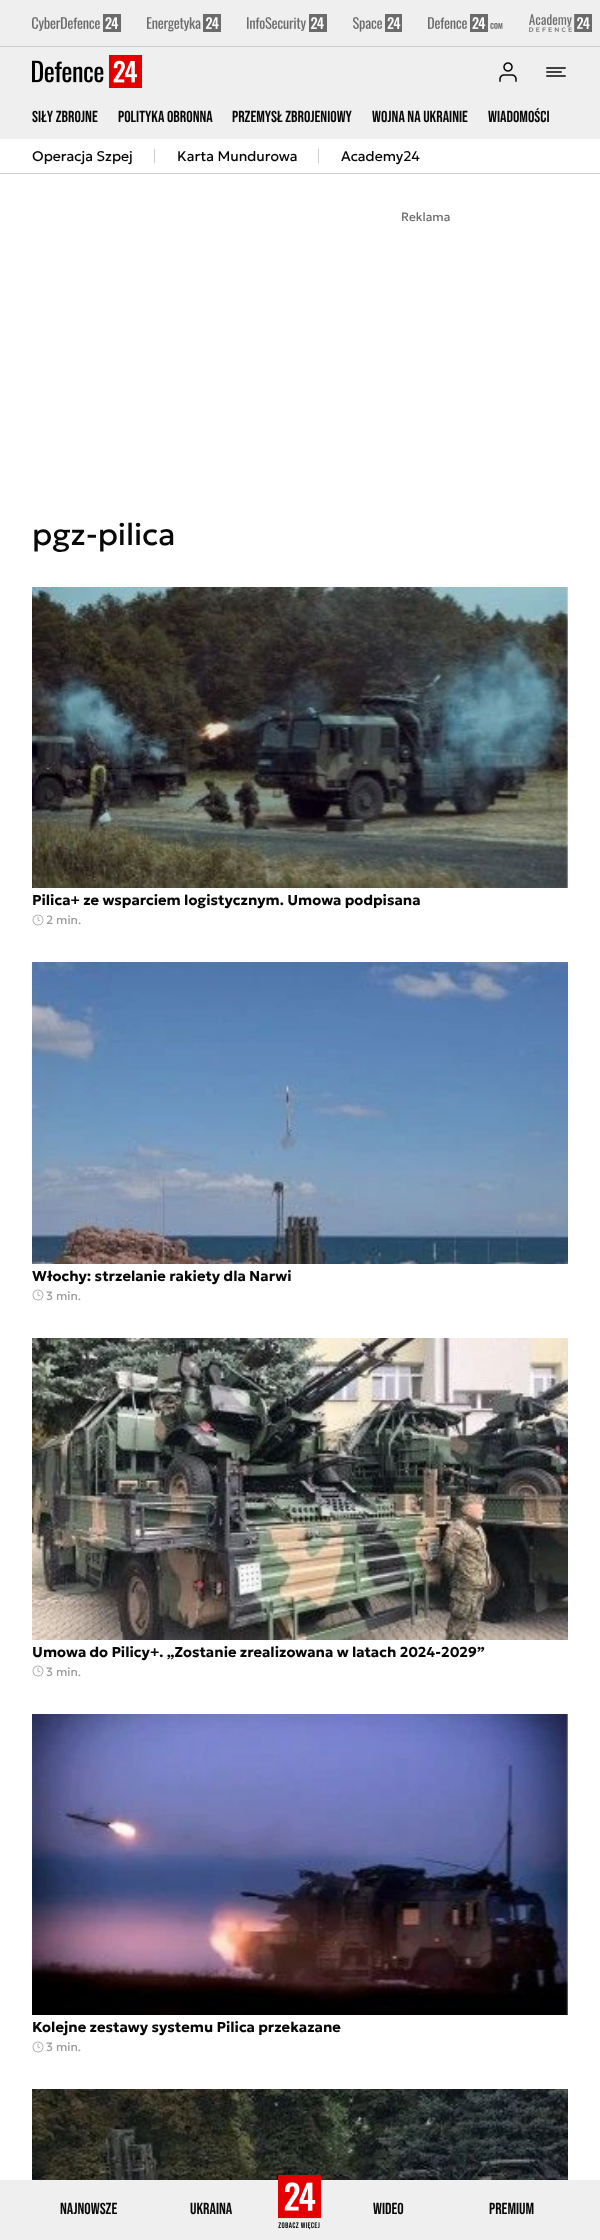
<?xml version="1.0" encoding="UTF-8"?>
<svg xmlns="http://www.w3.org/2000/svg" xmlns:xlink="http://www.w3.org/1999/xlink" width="600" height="2240">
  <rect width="100%" height="100%" fill="#ffffff" />
  <rect width="600" height="46" fill="#efefef" />
  <rect y="46" width="600" height="1" fill="#cecece" />
  <image x="32" y="14" width="89" height="18" xlink:href="image1.png" />
  <image x="147" y="14" width="74" height="18" xlink:href="image2.png" />
  <image x="247" y="14" width="80" height="18" xlink:href="image3.png" />
  <image x="353" y="14" width="49" height="18" xlink:href="image4.png" />
  <image x="428" y="14" width="75" height="18" xlink:href="image5.png" />
  <image x="529" y="14" width="63" height="18" xlink:href="image6.png" />
  <rect y="47" width="600" height="92" fill="#efefef" />
  <image x="32" y="55" width="110" height="33" xlink:href="image7.png" />
  <image x="499" y="62" width="18" height="20" xlink:href="image8.png" />
  <image x="546" y="67" width="20" height="10" xlink:href="image9.png" />
  <rect y="173" width="600" height="1" fill="#cecece" />
  <rect x="154" y="149" width="1" height="14" fill="#cecece" />
  <rect x="318" y="149" width="1" height="14" fill="#cecece" />
  <image x="32" y="587" width="536" height="301" xlink:href="image10.png" />
  <image x="32" y="914" width="12" height="12" xlink:href="image11.png" />
  <image x="32" y="962" width="536" height="302" xlink:href="image12.png" />
  <image x="32" y="1289" width="12" height="12" xlink:href="image11.png" />
  <image x="32" y="1338" width="536" height="302" xlink:href="image13.png" />
  <image x="32" y="1665" width="12" height="12" xlink:href="image11.png" />
  <image x="32" y="1714" width="536" height="301" xlink:href="image14.png" />
  <image x="32" y="2041" width="12" height="12" xlink:href="image11.png" />
  <image x="32" y="2089" width="536" height="91" xlink:href="image15.png" />
  <rect y="2180" width="600" height="60" fill="#efefef" />
  <image x="278" y="2175" width="44" height="55" xlink:href="image16.png" />
  <text x="32" y="122" style="font-family: Bebas Neue; font-size: 16px; fill: #080808">Siły zbrojne</text>
  <text x="118" y="122" style="font-family: Bebas Neue; font-size: 16px; fill: #080808">Polityka obronna</text>
  <text x="232" y="122" style="font-family: Bebas Neue; font-size: 16px; fill: #080808">Przemysł Zbrojeniowy</text>
  <text x="372" y="122" style="font-family: Bebas Neue; font-size: 16px; fill: #080808">Wojna na Ukrainie</text>
  <text x="488" y="122" style="font-family: Bebas Neue; font-size: 16px; fill: #080808">Wiadomości</text>
  <text x="32" y="161" style="font-family: Geologica; font-size: 14px; fill: #080808">Operacja Szpej</text>
  <text x="177" y="161" style="font-family: Geologica; font-size: 14px; fill: #080808">Karta Mundurowa</text>
  <text x="341" y="161" style="font-family: Geologica; font-size: 14px; fill: #080808">Academy24</text>
  <text x="401" y="221" style="font-family: Geologica; font-size: 12px; fill: #6b6b6b">Reklama</text>
  <text x="32" y="545" style="font-family: Geologica; font-size: 31px; fill: #080808">pgz-pilica</text>
  <text x="32" y="905" style="font-family: Geologica; font-size: 14.4px; font-weight: bold; fill: #080808">Pilica+ ze wsparciem logistycznym. Umowa podpisana</text>
  <text x="46" y="924" style="font-family: Geologica; font-size: 12px; fill: #9c9c9c">2 min.</text>
  <text x="32" y="1281" style="font-family: Geologica; font-size: 14.4px; font-weight: bold; fill: #080808">Włochy: strzelanie rakiety dla Narwi</text>
  <text x="46" y="1300" style="font-family: Geologica; font-size: 12px; fill: #9c9c9c">3 min.</text>
  <text x="32" y="1657" style="font-family: Geologica; font-size: 14.4px; font-weight: bold; fill: #080808">Umowa do Pilicy+. „Zostanie zrealizowana w latach 2024-2029”</text>
  <text x="46" y="1676" style="font-family: Geologica; font-size: 12px; fill: #9c9c9c">3 min.</text>
  <text x="32" y="2032" style="font-family: Geologica; font-size: 14.4px; font-weight: bold; fill: #080808">Kolejne zestawy systemu Pilica przekazane</text>
  <text x="46" y="2051" style="font-family: Geologica; font-size: 12px; fill: #9c9c9c">3 min.</text>
  <text x="60" y="2214" style="font-family: Bebas Neue; font-size: 16px; fill: #080808">Najnowsze</text>
  <text x="190" y="2214" style="font-family: Bebas Neue; font-size: 16px; fill: #080808">Ukraina</text>
  <text x="373" y="2214" style="font-family: Bebas Neue; font-size: 16px; fill: #080808">Wideo</text>
  <text x="489" y="2214" style="font-family: Bebas Neue; font-size: 16px; fill: #080808">Premium</text>
</svg>
